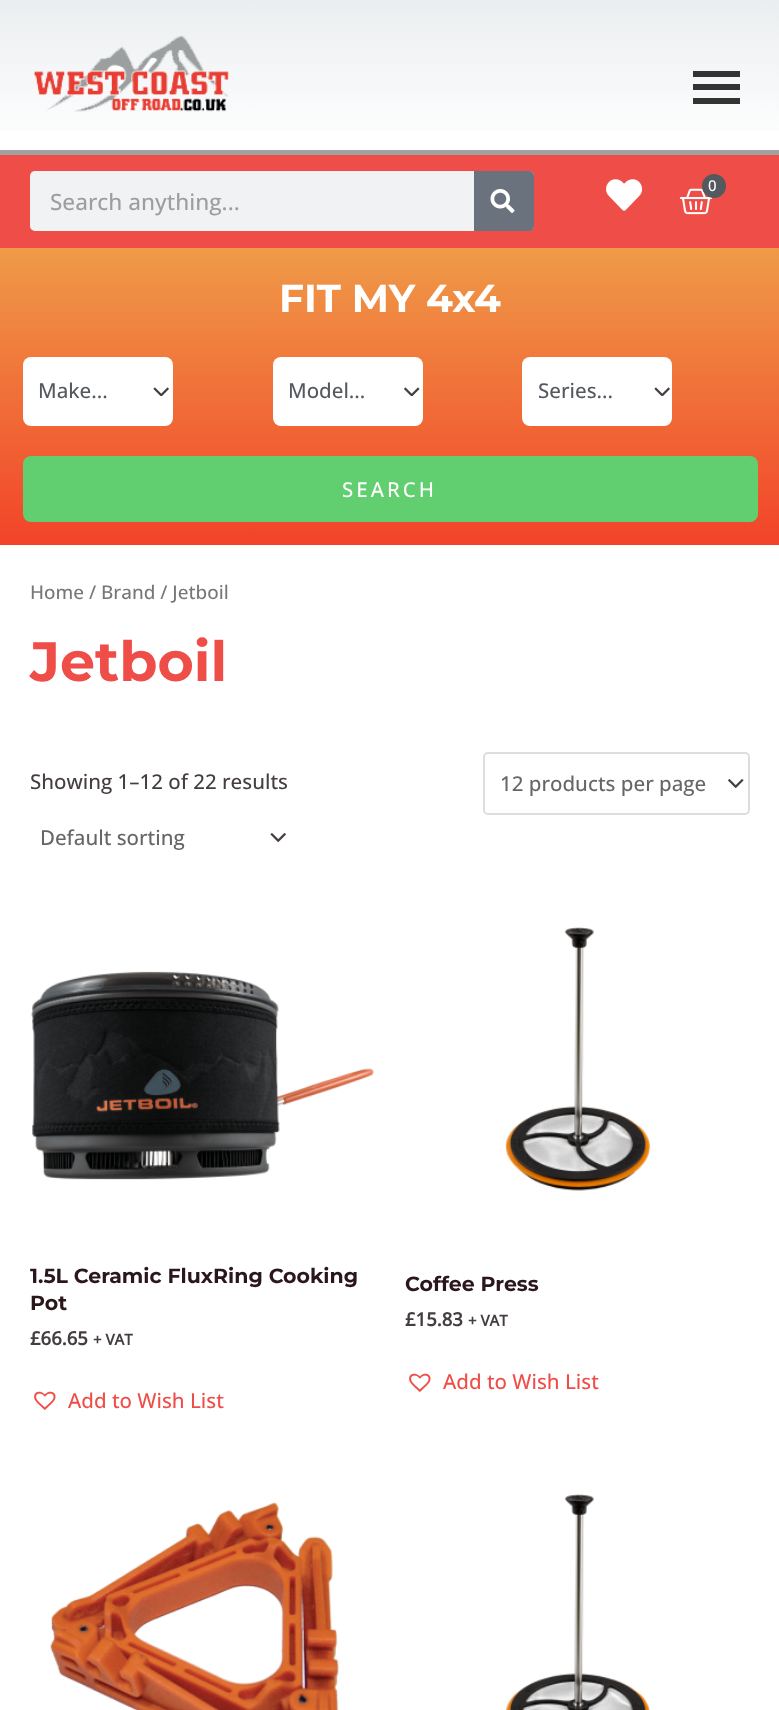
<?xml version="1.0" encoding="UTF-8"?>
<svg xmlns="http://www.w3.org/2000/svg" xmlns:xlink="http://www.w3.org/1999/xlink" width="779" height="1710">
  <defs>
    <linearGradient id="g1" gradientUnits="userSpaceOnUse" x1="390" y1="0" x2="390" y2="150"><stop offset="0" stop-color="#ebeef0" /><stop offset="1" stop-color="#ffffff" /></linearGradient>
    <linearGradient id="g2" gradientUnits="userSpaceOnUse" x1="390" y1="247" x2="390" y2="545"><stop offset="0" stop-color="#ef9b48" /><stop offset="1" stop-color="#f24329" /></linearGradient>
  </defs>
  <rect width="100%" height="100%" fill="#ffffff" />
  <rect width="779" height="131" fill="url(#g1)" />
  <image x="34" y="35" width="195" height="77" xlink:href="image1.png" />
  <rect x="693" y="71" width="47" height="6" fill="#333333" />
  <rect x="693" y="84" width="47" height="6" fill="#333333" />
  <rect x="693" y="98" width="47" height="6" fill="#333333" />
  <rect y="155" width="779" height="93" fill="#ef4d48" />
  <rect y="150" width="779" height="5" fill="#a1a1a1" />
  <image x="606" y="179" width="37" height="32" xlink:href="image2.png" />
  <image x="679" y="188" width="34" height="27" xlink:href="image3.png" />
  <circle cx="714" cy="186" r="12" fill="#54595f" />
  <rect x="30" y="171" width="504" height="60" rx="5" fill="#f1f2f3" />
  <path d="M 474 171 h 55 c 3 0 5 2 5 5 v 50 c 0 3 -2 5 -5 5 h -55 z" fill="#69727d" />
  <image x="490" y="189" width="25" height="24" xlink:href="image4.png" />
  <rect y="248" width="779" height="297" fill="url(#g2)" />
  <rect x="23" y="357" width="150" height="69" rx="8" fill="#ffffff" />
  <image x="153" y="387" width="16" height="9" xlink:href="image5.png" />
  <rect x="273" y="357" width="150" height="69" rx="8" fill="#ffffff" />
  <image x="404" y="387" width="16" height="9" xlink:href="image6.png" />
  <rect x="522" y="357" width="150" height="69" rx="8" fill="#ffffff" />
  <image x="654" y="387" width="16" height="9" xlink:href="image5.png" />
  <rect x="23" y="456" width="735" height="66" rx="8" fill="#61ce70" />
  <image x="728" y="779" width="16" height="9" xlink:href="image7.png" />
  <rect x="484" y="753" width="265" height="61" rx="4" fill="none" stroke="#dddddd" stroke-width="2" />
  <image x="270" y="833" width="16" height="9" xlink:href="image8.png" />
  <image x="31" y="971" width="343" height="209" xlink:href="image9.png" />
  <image x="34" y="1391" width="22" height="19" xlink:href="image10.png" />
  <image x="505" y="927" width="146" height="264" xlink:href="image11.png" />
  <image x="409" y="1373" width="22" height="19" xlink:href="image12.png" />
  <image x="50" y="1502" width="290" height="208" xlink:href="image13.png" />
  <image x="506" y="1494" width="144" height="216" xlink:href="image14.png" />
  <text x="708" y="191" style="font-family: Open Sans; font-size: 15px; font-weight: 500; letter-spacing: 3px; fill: #ffffff">0</text>
  <text x="50" y="210" style="font-family: Open Sans; font-size: 22.5px; font-weight: 500; fill: #9e9e9e">Search anything...</text>
  <text x="279" y="312" style="font-family: Montserrat; font-size: 39px; font-weight: 100; fill: #ffffff">FIT MY 4x4</text>
  <text x="38" y="398" style="font-family: Open Sans; font-size: 20.5px; font-weight: 500; fill: #54595f">Make...</text>
  <text x="288" y="398" style="font-family: Open Sans; font-size: 20.5px; font-weight: 500; fill: #54595f">Model...</text>
  <text x="538" y="398" style="font-family: Open Sans; font-size: 20.5px; font-weight: 500; fill: #54595f">Series...</text>
  <text x="342" y="497" style="font-family: Open Sans; font-size: 20.5px; font-weight: 500; letter-spacing: 3px; fill: #ffffff">SEARCH</text>
  <text x="30" y="599" style="font-family: Open Sans; font-size: 18.9px; font-weight: 500; fill: #777777">Home / Brand / Jetboil</text>
  <text x="30" y="681" style="font-family: Montserrat; font-size: 55.5px; font-weight: 100; fill: #ef4d48">Jetboil</text>
  <text x="30" y="789" style="font-family: Open Sans; font-size: 20.5px; font-weight: 500; fill: #453e3e">Showing 1–12 of 22 results</text>
  <text x="500" y="791" style="font-family: Open Sans; font-size: 20.5px; font-weight: 500; fill: #666666">12 products per page</text>
  <text x="40" y="845" style="font-family: Open Sans; font-size: 20.5px; font-weight: 500; fill: #666666">Default sorting</text>
  <text x="30" y="1283" style="font-family: Montserrat; font-size: 20.5px; font-weight: 100; fill: #2b161b">1.5L Ceramic FluxRing Cooking</text>
  <text x="30" y="1310" style="font-family: Montserrat; font-size: 20.5px; font-weight: 100; fill: #2b161b">Pot</text>
  <text x="30" y="1345" style="font-family: Open Sans; font-size: 18.5px; font-weight: bold; fill: #453e3e">£66.65</text>
  <text x="93" y="1345" style="font-family: Open Sans; font-size: 15px; font-weight: bold; fill: #453e3e">+ VAT</text>
  <text x="68" y="1408" style="font-family: Open Sans; font-size: 20.5px; font-weight: 500; fill: #ef4d48">Add to Wish List</text>
  <text x="405" y="1291" style="font-family: Montserrat; font-size: 20.5px; font-weight: 100; fill: #2b161b">Coffee Press</text>
  <text x="405" y="1326" style="font-family: Open Sans; font-size: 18.5px; font-weight: bold; fill: #453e3e">£15.83</text>
  <text x="468" y="1326" style="font-family: Open Sans; font-size: 15px; font-weight: bold; fill: #453e3e">+ VAT</text>
  <text x="443" y="1389" style="font-family: Open Sans; font-size: 20.5px; font-weight: 500; fill: #ef4d48">Add to Wish List</text>
</svg>
